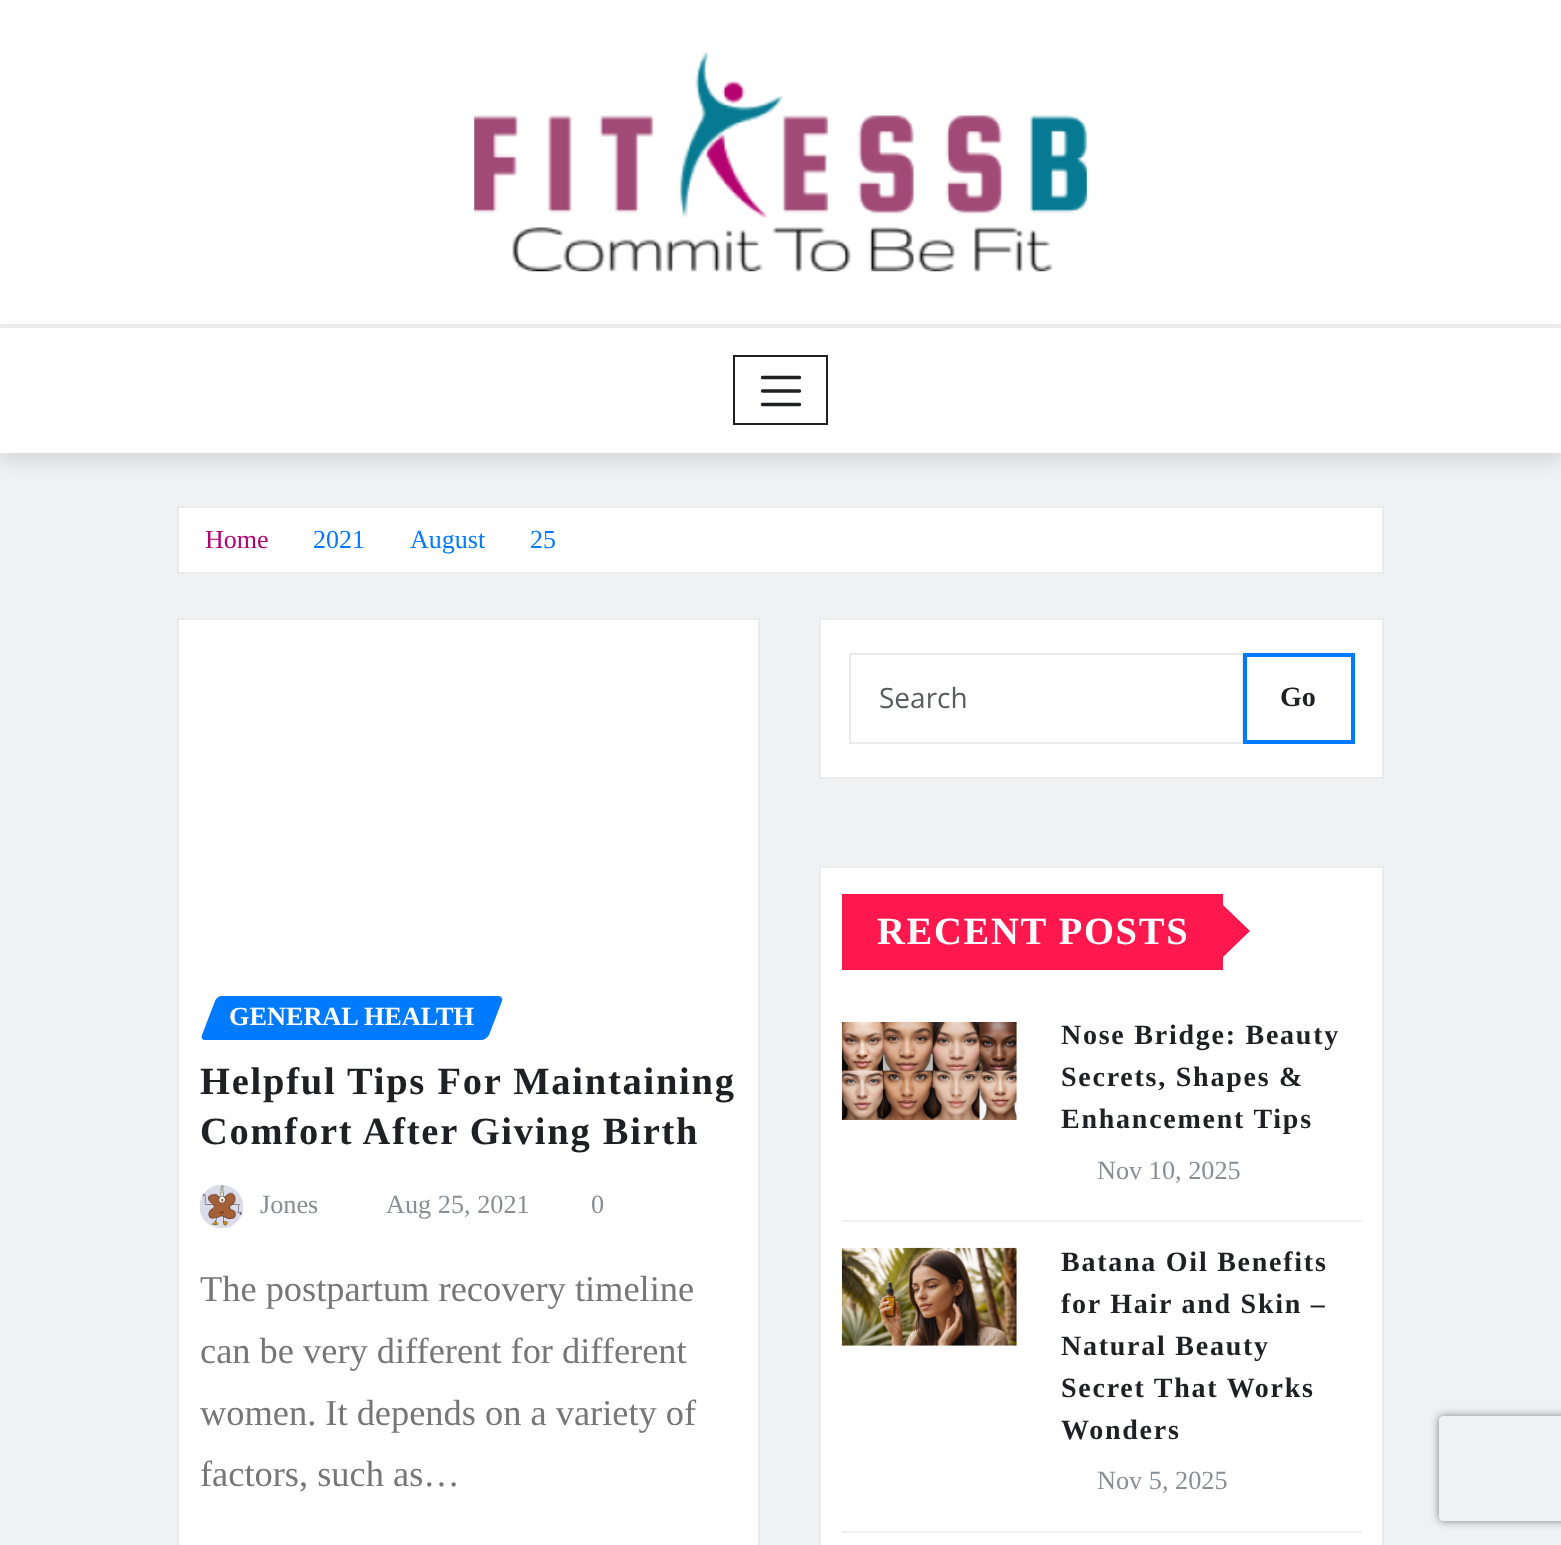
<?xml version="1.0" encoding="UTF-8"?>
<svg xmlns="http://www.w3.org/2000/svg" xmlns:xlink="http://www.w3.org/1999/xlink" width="1561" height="1545">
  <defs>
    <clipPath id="clip1"><path d="M 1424 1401 h 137 v 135 h -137 z m 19 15 h 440 c 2 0 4 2 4 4 v 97 c 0 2 -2 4 -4 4 h -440 c -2 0 -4 -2 -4 -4 v -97 c 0 -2 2 -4 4 -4 z" clip-rule="evenodd" /></clipPath>
  </defs>
  <rect width="100%" height="100%" fill="#f0f1f3" />
  <rect width="1561" height="324" fill="#ffffff" />
  <image x="474" y="52" width="613" height="220" xlink:href="image1.png" />
  <rect y="333" width="1561" height="129" fill="#000000" fill-opacity="0.1" filter="blur(9px)" />
  <rect y="328" width="1561" height="125" fill="#ffffff" />
  <rect y="324" width="1561" height="4" fill="#ebebeb" />
  <rect x="734" y="356" width="93" height="68" fill="none" stroke="#1f2024" stroke-width="2" />
  <path d="M 762.5 377.5 h 37 m -37 13.5 h 37 m -37 13.5 h 37" fill="none" stroke="#1f2024" stroke-width="3.4" stroke-linecap="round" />
  <rect x="178" y="507" width="1205" height="66" fill="#ffffff" stroke="#ebebeb" stroke-width="2" />
  <rect x="178" y="619" width="581" height="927" fill="#ffffff" stroke="#ebebeb" stroke-width="2" />
  <path d="M 222 996 h 276 c 3 0 5 2 4 5 l -13 34 c -2 3 -5 5 -8 5 h -276 c -3 0 -4 -2 -3 -5 l 13 -34 c 1 -3 4 -5 7 -5 z" fill="#007bff" />
  <image x="199" y="1185" width="44" height="44" xlink:href="image2.png" />
  <rect x="820" y="619" width="563" height="159" fill="#ffffff" stroke="#ebebeb" stroke-width="2" />
  <rect x="850" y="654" width="393" height="89" fill="none" stroke="#ebebeb" stroke-width="2" />
  <rect x="1245" y="655" width="108" height="87" fill="none" stroke="#007bff" stroke-width="4" />
  <rect x="820" y="867" width="563" height="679" fill="#ffffff" stroke="#ebebeb" stroke-width="2" />
  <rect x="842" y="894" width="381" height="76" fill="#ff184e" />
  <path d="M 1223 957 v -52 l 27 26 z" fill="#ff184e" />
  <rect x="842" y="1220" width="520" height="2" fill="#f1f1f1" />
  <image x="841" y="1022" width="176" height="98" xlink:href="image3.png" />
  <rect x="842" y="1531" width="520" height="2" fill="#f1f1f1" />
  <image x="841" y="1247" width="176" height="99" xlink:href="image4.png" />
  <g clip-path="url(#clip1)">
    <rect x="1439" y="1416" width="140" height="105" rx="4" fill="#808080" filter="blur(4.5px)" />
  </g>
  <text x="205" y="548" style="font-family: Liberation Serif; font-size: 26px; fill: #b60271">Home</text>
  <text x="313" y="548" style="font-family: Liberation Serif; font-size: 26px; fill: #007bff">2021</text>
  <text x="410" y="548" style="font-family: Liberation Serif; font-size: 26px; fill: #007bff">August</text>
  <text x="530" y="548" style="font-family: Liberation Serif; font-size: 26px; fill: #007bff">25</text>
  <text x="229" y="1025" style="font-family: Liberation Serif; font-size: 26.25px; font-weight: bold; fill: #ffffff">GENERAL HEALTH</text>
  <text x="200" y="1094" style="font-family: Liberation Serif; font-size: 38.5px; font-weight: bold; letter-spacing: 1.75px; fill: #1f2024">Helpful Tips For Maintaining</text>
  <text x="200" y="1144" style="font-family: Liberation Serif; font-size: 38.5px; font-weight: bold; letter-spacing: 1.75px; fill: #1f2024">Comfort After Giving Birth</text>
  <text x="260" y="1213" style="font-family: Liberation Serif; font-size: 26.25px; fill: #878e94">Jones</text>
  <text x="386" y="1213" style="font-family: Liberation Serif; font-size: 26.25px; fill: #878e94">Aug 25, 2021</text>
  <text x="591" y="1213" style="font-family: Liberation Serif; font-size: 26.25px; fill: #878e94">0</text>
  <text x="200" y="1301" style="font-family: Liberation Serif; font-size: 36.4px; fill: #767676">The postpartum recovery timeline</text>
  <text x="200" y="1363" style="font-family: Liberation Serif; font-size: 36.4px; fill: #767676">can be very different for different</text>
  <text x="200" y="1425" style="font-family: Liberation Serif; font-size: 36.4px; fill: #767676">women. It depends on a variety of</text>
  <text x="200" y="1486" style="font-family: Liberation Serif; font-size: 36.4px; fill: #767676">factors, such as…</text>
  <text x="879" y="708" style="font-family: Open Sans; font-size: 28px; fill: #595c5f">Search</text>
  <text x="1280" y="706" style="font-family: Liberation Serif; font-size: 28px; font-weight: bold; fill: #1f2024">Go</text>
  <text x="877" y="944" style="font-family: Liberation Serif; font-size: 38.5px; font-weight: bold; letter-spacing: 1.75px; fill: #ffffff">RECENT POSTS</text>
  <text x="1061" y="1044" style="font-family: Liberation Serif; font-size: 28px; font-weight: bold; letter-spacing: 1.75px; fill: #1f2024">Nose Bridge: Beauty</text>
  <text x="1061" y="1086" style="font-family: Liberation Serif; font-size: 28px; font-weight: bold; letter-spacing: 1.75px; fill: #1f2024">Secrets, Shapes &amp;</text>
  <text x="1061" y="1128" style="font-family: Liberation Serif; font-size: 28px; font-weight: bold; letter-spacing: 1.75px; fill: #1f2024">Enhancement Tips</text>
  <text x="1097" y="1179" style="font-family: Liberation Serif; font-size: 26.25px; fill: #878e94">Nov 10, 2025</text>
  <text x="1061" y="1271" style="font-family: Liberation Serif; font-size: 28px; font-weight: bold; letter-spacing: 1.75px; fill: #1f2024">Batana Oil Benefits</text>
  <text x="1061" y="1313" style="font-family: Liberation Serif; font-size: 28px; font-weight: bold; letter-spacing: 1.75px; fill: #1f2024">for Hair and Skin –</text>
  <text x="1061" y="1355" style="font-family: Liberation Serif; font-size: 28px; font-weight: bold; letter-spacing: 1.75px; fill: #1f2024">Natural Beauty</text>
  <text x="1061" y="1397" style="font-family: Liberation Serif; font-size: 28px; font-weight: bold; letter-spacing: 1.75px; fill: #1f2024">Secret That Works</text>
  <text x="1061" y="1439" style="font-family: Liberation Serif; font-size: 28px; font-weight: bold; letter-spacing: 1.75px; fill: #1f2024">Wonders</text>
  <text x="1097" y="1489" style="font-family: Liberation Serif; font-size: 26.25px; fill: #878e94">Nov 5, 2025</text>
</svg>
